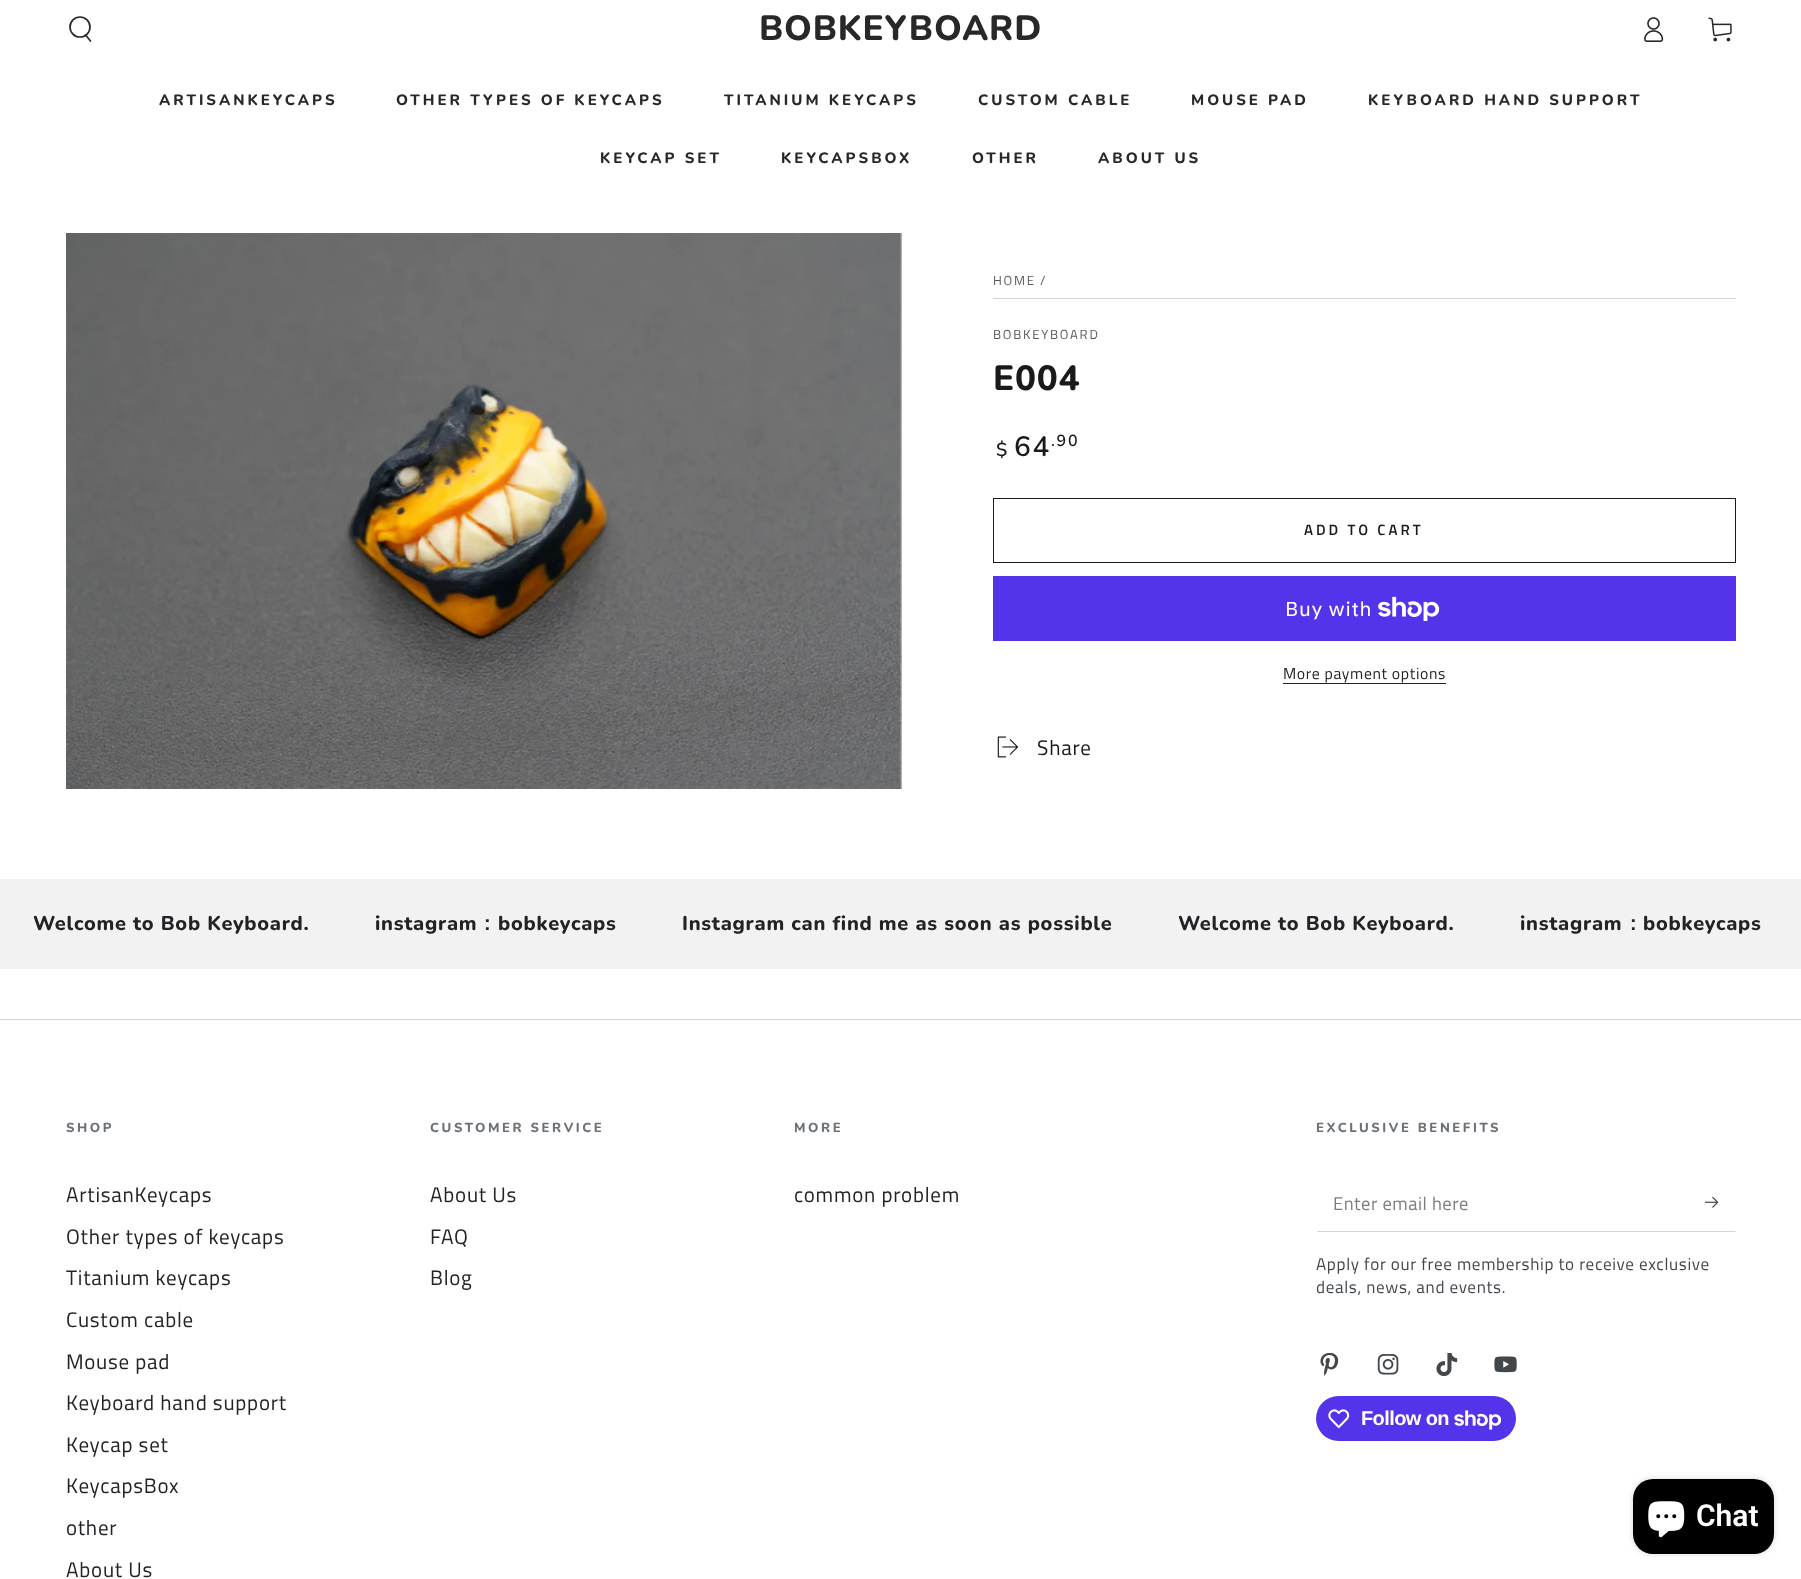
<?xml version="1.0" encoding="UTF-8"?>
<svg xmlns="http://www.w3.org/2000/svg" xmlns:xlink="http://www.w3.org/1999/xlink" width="1801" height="1579">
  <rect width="100%" height="100%" fill="#ffffff" />
  <circle cx="80" cy="27" r="10" fill="none" stroke="#282828" stroke-width="1.7" />
  <path d="M 86 35.5 l 4.5 5.5" fill="none" stroke="#282828" stroke-width="1.7" stroke-linecap="round" />
  <image x="1644" y="17" width="20" height="25" xlink:href="image1.png" />
  <image x="1708" y="17" width="24" height="25" xlink:href="image2.png" />
  <image x="66" y="233" width="836" height="556" xlink:href="image3.png" />
  <rect x="993" y="298" width="743" height="1" fill="#d2d5d9" />
  <rect x="993.5" y="498.5" width="742" height="64" fill="none" stroke="#1a1b18" />
  <rect x="993" y="576" width="743" height="65" fill="#5433eb" />
  <image x="1378" y="596" width="62" height="25" xlink:href="image4.png" />
  <rect x="1283" y="683" width="163" height="1" fill="#212326" />
  <image x="997" y="736" width="22" height="22" xlink:href="image5.png" />
  <rect y="879" width="1801" height="90" fill="#f2f2f2" />
  <rect y="1019" width="1801" height="1" fill="#d2d5d9" />
  <path d="M 1736 1232 h -420 l 2 -1 h 417 z" fill="#d2d5d9" />
  <image x="1705" y="1196" width="14" height="12" xlink:href="image6.png" />
  <image x="1320" y="1353" width="19" height="23" xlink:href="image7.png" />
  <image x="1377" y="1354" width="22" height="21" xlink:href="image8.png" />
  <image x="1436" y="1353" width="22" height="23" xlink:href="image9.png" />
  <image x="1494" y="1356" width="23" height="17" xlink:href="image10.png" />
  <rect x="1316" y="1396" width="200" height="45" rx="22.5" fill="#5433eb" />
  <image x="1328" y="1409" width="22" height="20" xlink:href="image11.png" />
  <image x="1454" y="1410" width="47" height="20" xlink:href="image12.png" />
  <rect x="1633" y="1479" width="141" height="75" rx="20" fill="#000000" fill-opacity="0.15" filter="blur(3px)" />
  <rect x="1633" y="1479" width="141" height="75" rx="20" fill="#000000" />
  <image x="1648" y="1501" width="37" height="37" xlink:href="image13.png" />
  <text x="759" y="40" style="font-family: Nunito; font-size: 35px; font-weight: 800; letter-spacing: 0.75px; fill: #282828">BOBKEYBOARD</text>
  <text x="159" y="105" style="font-family: Nunito; font-size: 15px; font-weight: 800; letter-spacing: 3px; fill: #282828">ARTISANKEYCAPS</text>
  <text x="396" y="105" style="font-family: Nunito; font-size: 15px; font-weight: 800; letter-spacing: 3px; fill: #282828">OTHER TYPES OF KEYCAPS</text>
  <text x="724" y="105" style="font-family: Nunito; font-size: 15px; font-weight: 800; letter-spacing: 3px; fill: #282828">TITANIUM KEYCAPS</text>
  <text x="978" y="105" style="font-family: Nunito; font-size: 15px; font-weight: 800; letter-spacing: 3px; fill: #282828">CUSTOM CABLE</text>
  <text x="1191" y="105" style="font-family: Nunito; font-size: 15px; font-weight: 800; letter-spacing: 3px; fill: #282828">MOUSE PAD</text>
  <text x="1368" y="105" style="font-family: Nunito; font-size: 15px; font-weight: 800; letter-spacing: 3px; fill: #282828">KEYBOARD HAND SUPPORT</text>
  <text x="600" y="163" style="font-family: Nunito; font-size: 15px; font-weight: 800; letter-spacing: 3px; fill: #282828">KEYCAP SET</text>
  <text x="781" y="163" style="font-family: Nunito; font-size: 15px; font-weight: 800; letter-spacing: 3px; fill: #282828">KEYCAPSBOX</text>
  <text x="972" y="163" style="font-family: Nunito; font-size: 15px; font-weight: 800; letter-spacing: 3px; fill: #282828">OTHER</text>
  <text x="1098" y="163" style="font-family: Nunito; font-size: 15px; font-weight: 800; letter-spacing: 3px; fill: #282828">ABOUT US</text>
  <text x="993" y="285" style="font-family: Titillium Web; font-size: 13.1px; letter-spacing: 1.75px; fill: #595a5c">HOME</text>
  <text x="1040" y="285" style="font-family: Titillium Web; font-size: 13.1px; letter-spacing: 1.75px; fill: #595a5c">/</text>
  <text x="993" y="339" style="font-family: Titillium Web; font-size: 13.1px; letter-spacing: 1.75px; fill: #595a5c">BOBKEYBOARD</text>
  <text x="993" y="390" style="font-family: Nunito; font-size: 35px; font-weight: 800; letter-spacing: 0.75px; fill: #1a1b18">E004</text>
  <text x="996" y="456" style="font-family: Nunito; font-size: 19px; font-weight: 600; letter-spacing: 1.75px; fill: #1a1b18">$</text>
  <text x="1014" y="456" style="font-family: Nunito; font-size: 28px; font-weight: 600; letter-spacing: 1.75px; fill: #1a1b18">64</text>
  <text x="1051" y="446" style="font-family: Nunito; font-size: 16px; font-weight: 600; letter-spacing: 1.75px; fill: #1a1b18">.90</text>
  <text x="1304" y="535" style="font-family: Titillium Web; font-size: 15px; font-weight: 600; letter-spacing: 3px; fill: #1a1b18">ADD TO CART</text>
  <text x="1285" y="616" style="font-family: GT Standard; font-size: 20px; letter-spacing: 0.75px; fill: #ffffff">Buy with</text>
  <text x="1283" y="679" style="font-family: Titillium Web; font-size: 15.75px; letter-spacing: 0.65px; fill: #212326">More payment options</text>
  <text x="1037" y="755" style="font-family: Titillium Web; font-size: 21px; letter-spacing: 0.75px; fill: #1a1b18">Share</text>
  <text x="33" y="930" style="font-family: Nunito; font-size: 20px; font-weight: 800; letter-spacing: 0.75px; fill: #212326">Welcome to Bob Keyboard.</text>
  <text x="375" y="930" style="font-family: Nunito; font-size: 20px; font-weight: 800; letter-spacing: 0.75px; fill: #212326">instagram</text>
  <text x="477" y="930" style="font-family: WenQuanYi Zen Hei; font-size: 20px; font-weight: bold; letter-spacing: 0.75px; fill: #212326">：</text>
  <text x="498" y="930" style="font-family: Nunito; font-size: 20px; font-weight: 800; letter-spacing: 0.75px; fill: #212326">bobkeycaps</text>
  <text x="682" y="930" style="font-family: Nunito; font-size: 20px; font-weight: 800; letter-spacing: 0.75px; fill: #212326">Instagram can find me as soon as possible</text>
  <text x="1178" y="930" style="font-family: Nunito; font-size: 20px; font-weight: 800; letter-spacing: 0.75px; fill: #212326">Welcome to Bob Keyboard.</text>
  <text x="1520" y="930" style="font-family: Nunito; font-size: 20px; font-weight: 800; letter-spacing: 0.75px; fill: #212326">instagram</text>
  <text x="1623" y="930" style="font-family: WenQuanYi Zen Hei; font-size: 20px; font-weight: bold; letter-spacing: 0.75px; fill: #212326">：</text>
  <text x="1643" y="930" style="font-family: Nunito; font-size: 20px; font-weight: 800; letter-spacing: 0.75px; fill: #212326">bobkeycaps</text>
  <text x="66" y="1132" style="font-family: Nunito; font-size: 13.1px; font-weight: 800; letter-spacing: 2.6px; fill: #6b7177">SHOP</text>
  <text x="66" y="1202" style="font-family: Titillium Web; font-size: 21px; letter-spacing: 0.75px; fill: #212326">ArtisanKeycaps</text>
  <text x="66" y="1244" style="font-family: Titillium Web; font-size: 21px; letter-spacing: 0.75px; fill: #212326">Other types of keycaps</text>
  <text x="66" y="1285" style="font-family: Titillium Web; font-size: 21px; letter-spacing: 0.75px; fill: #212326">Titanium keycaps</text>
  <text x="66" y="1327" style="font-family: Titillium Web; font-size: 21px; letter-spacing: 0.75px; fill: #212326">Custom cable</text>
  <text x="66" y="1369" style="font-family: Titillium Web; font-size: 21px; letter-spacing: 0.75px; fill: #212326">Mouse pad</text>
  <text x="66" y="1410" style="font-family: Titillium Web; font-size: 21px; letter-spacing: 0.75px; fill: #212326">Keyboard hand support</text>
  <text x="66" y="1452" style="font-family: Titillium Web; font-size: 21px; letter-spacing: 0.75px; fill: #212326">Keycap set</text>
  <text x="66" y="1493" style="font-family: Titillium Web; font-size: 21px; letter-spacing: 0.75px; fill: #212326">KeycapsBox</text>
  <text x="66" y="1535" style="font-family: Titillium Web; font-size: 21px; letter-spacing: 0.75px; fill: #212326">other</text>
  <text x="66" y="1577" style="font-family: Titillium Web; font-size: 21px; letter-spacing: 0.75px; fill: #212326">About Us</text>
  <text x="430" y="1132" style="font-family: Nunito; font-size: 13.1px; font-weight: 800; letter-spacing: 2.6px; fill: #6b7177">CUSTOMER SERVICE</text>
  <text x="430" y="1202" style="font-family: Titillium Web; font-size: 21px; letter-spacing: 0.75px; fill: #212326">About Us</text>
  <text x="430" y="1244" style="font-family: Titillium Web; font-size: 21px; letter-spacing: 0.75px; fill: #212326">FAQ</text>
  <text x="430" y="1285" style="font-family: Titillium Web; font-size: 21px; letter-spacing: 0.75px; fill: #212326">Blog</text>
  <text x="794" y="1132" style="font-family: Nunito; font-size: 13.1px; font-weight: 800; letter-spacing: 2.6px; fill: #6b7177">MORE</text>
  <text x="794" y="1202" style="font-family: Titillium Web; font-size: 21px; letter-spacing: 0.75px; fill: #212326">common problem</text>
  <text x="1316" y="1132" style="font-family: Nunito; font-size: 13.1px; font-weight: 800; letter-spacing: 2.6px; fill: #6b7177">EXCLUSIVE BENEFITS</text>
  <text x="1333" y="1210" style="font-family: Titillium Web; font-size: 18.5px; letter-spacing: 0.5px; fill: #7b7e82">Enter email here</text>
  <text x="1316" y="1270" style="font-family: Titillium Web; font-size: 17.1px; letter-spacing: 0.65px; fill: #42474c">Apply for our free membership to receive exclusive</text>
  <text x="1316" y="1293" style="font-family: Titillium Web; font-size: 17.1px; letter-spacing: 0.65px; fill: #42474c">deals, news, and events.</text>
  <text x="1361" y="1425" style="font-family: Liberation Sans; font-size: 20px; font-weight: bold; letter-spacing: -0.6px; fill: #ffffff">Follow on</text>
  <text x="1696" y="1526" style="font-family: Roboto; font-size: 30px; font-weight: 600; fill: #ffffff">Chat</text>
</svg>
